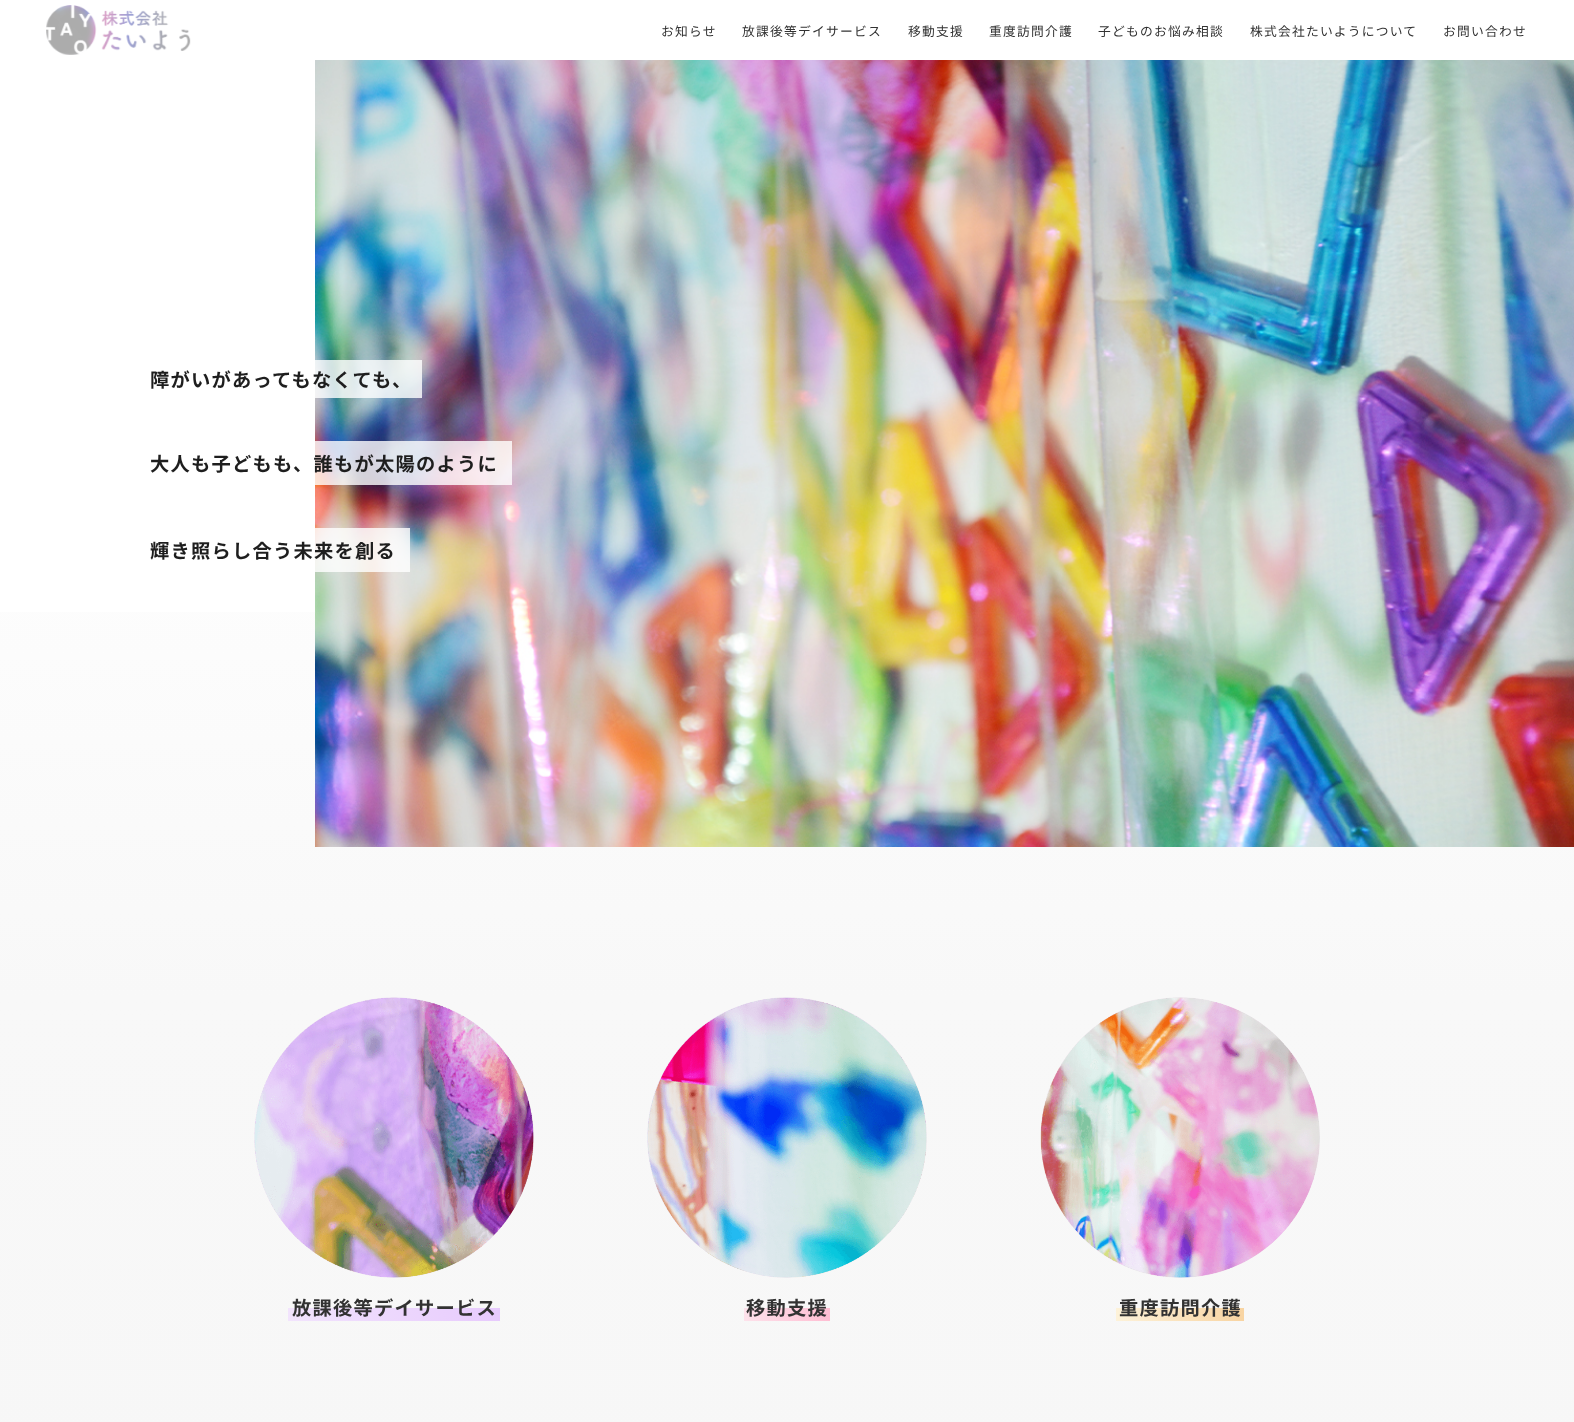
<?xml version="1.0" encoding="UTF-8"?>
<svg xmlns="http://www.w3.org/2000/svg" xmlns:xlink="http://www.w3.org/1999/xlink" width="1574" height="1422">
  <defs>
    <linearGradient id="g1" gradientUnits="userSpaceOnUse" x1="787" y1="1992" x2="787" y2="0"><stop offset="0" stop-color="#f6f6f6" /><stop offset="0.5" stop-color="#f8f8f8" /><stop offset="0.8" stop-color="#ffffff" /></linearGradient>
    <linearGradient id="g2" gradientUnits="userSpaceOnUse" x1="288" y1="1315" x2="500" y2="1315"><stop offset="0" stop-color="#f2e4fd" /><stop offset="1" stop-color="#e7cafd" /></linearGradient>
    <linearGradient id="g3" gradientUnits="userSpaceOnUse" x1="744" y1="1315" x2="830" y2="1315"><stop offset="0" stop-color="#fde2eb" /><stop offset="1" stop-color="#ffbed3" /></linearGradient>
    <linearGradient id="g4" gradientUnits="userSpaceOnUse" x1="1116" y1="1315" x2="1244" y2="1315"><stop offset="0" stop-color="#fdf2d9" /><stop offset="1" stop-color="#f8d4a2" /></linearGradient>
  </defs>
  <rect width="100%" height="100%" fill="#ffffff" />
  <rect y="612" width="1574" height="810" fill="url(#g1)" />
  <image x="46" y="5" width="145" height="50" xlink:href="image1.png" />
  <image x="315" y="60" width="1259" height="787" xlink:href="image2.png" />
  <rect x="315" y="360" width="107" height="38" fill="#ffffff" fill-opacity="0.8" />
  <rect x="315" y="441" width="197" height="44" fill="#ffffff" fill-opacity="0.8" />
  <rect x="315" y="528" width="95" height="44" fill="#ffffff" fill-opacity="0.8" />
  <image x="254" y="997" width="280" height="281" xlink:href="image3.png" />
  <rect x="288" y="1308" width="212" height="13" fill="url(#g2)" />
  <image x="647" y="997" width="280" height="281" xlink:href="image4.png" />
  <rect x="744" y="1308" width="86" height="13" fill="url(#g3)" />
  <image x="1040" y="997" width="280" height="281" xlink:href="image5.png" />
  <rect x="1116" y="1308" width="128" height="13" fill="url(#g4)" />
  <text x="661" y="36" style="font-family: Noto Sans JP; font-size: 12.75px; letter-spacing: 1.25px; fill: #323232">お知らせ</text>
  <text x="742" y="36" style="font-family: Noto Sans JP; font-size: 12.75px; letter-spacing: 1.25px; fill: #323232">放課後等デイサービス</text>
  <text x="908" y="36" style="font-family: Noto Sans JP; font-size: 12.75px; letter-spacing: 1.25px; fill: #323232">移動支援</text>
  <text x="989" y="36" style="font-family: Noto Sans JP; font-size: 12.75px; letter-spacing: 1.25px; fill: #323232">重度訪問介護</text>
  <text x="1098" y="36" style="font-family: Noto Sans JP; font-size: 12.75px; letter-spacing: 1.25px; fill: #323232">子どものお悩み相談</text>
  <text x="1250" y="36" style="font-family: Noto Sans JP; font-size: 12.75px; letter-spacing: 1.25px; fill: #323232">株式会社たいようについて</text>
  <text x="1443" y="36" style="font-family: Noto Sans JP; font-size: 12.75px; letter-spacing: 1.25px; fill: #323232">お問い合わせ</text>
  <text x="150" y="387" style="font-family: Noto Sans JP; font-size: 19.25px; font-weight: bold; letter-spacing: 1.25px; fill: #1e1e1e">障がいがあってもなくても、</text>
  <text x="150" y="471" style="font-family: Noto Sans JP; font-size: 19.25px; font-weight: bold; letter-spacing: 1.25px; fill: #1e1e1e">大人も子どもも、誰もが太陽のように</text>
  <text x="150" y="558" style="font-family: Noto Sans JP; font-size: 19.25px; font-weight: bold; letter-spacing: 1.25px; fill: #1e1e1e">輝き照らし合う未来を創る</text>
  <text x="292" y="1315" style="font-family: Noto Sans JP; font-size: 19.25px; font-weight: bold; letter-spacing: 1.25px; fill: #323232">放課後等デイサービス</text>
  <text x="746" y="1315" style="font-family: Noto Sans JP; font-size: 19.25px; font-weight: bold; letter-spacing: 1.25px; fill: #323232">移動支援</text>
  <text x="1119" y="1315" style="font-family: Noto Sans JP; font-size: 19.25px; font-weight: bold; letter-spacing: 1.25px; fill: #323232">重度訪問介護</text>
</svg>
